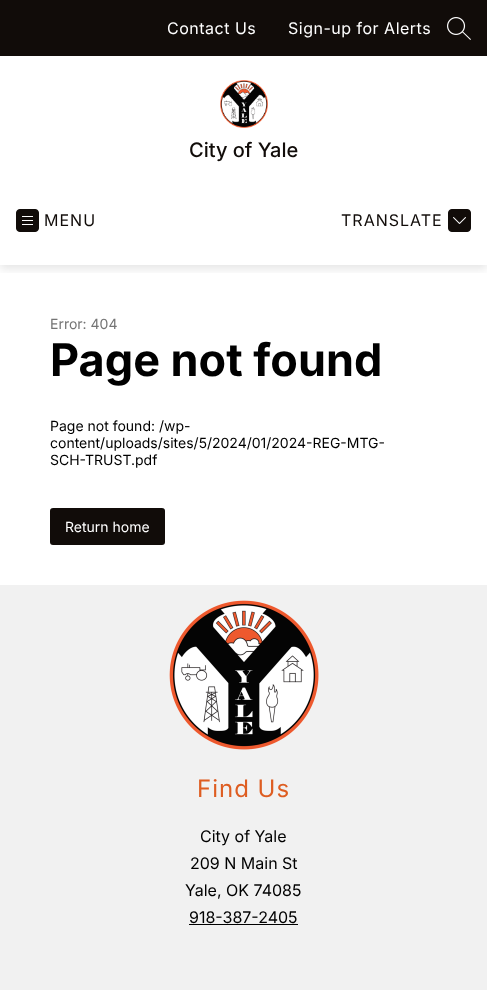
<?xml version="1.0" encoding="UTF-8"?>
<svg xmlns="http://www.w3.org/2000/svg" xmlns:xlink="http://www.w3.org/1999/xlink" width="487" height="990">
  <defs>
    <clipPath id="clip1"><rect x="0" y="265" width="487" height="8" /></clipPath>
  </defs>
  <rect width="100%" height="100%" fill="#ffffff" />
  <g clip-path="url(#clip1)">
    <rect y="4" width="487" height="265" fill="#000000" fill-opacity="0.1" filter="blur(5px)" />
  </g>
  <rect width="487" height="56" fill="#110c09" />
  <image x="447" y="17" width="24" height="23" xlink:href="image1.png" />
  <image x="220" y="80" width="48" height="48" xlink:href="image2.png" />
  <image x="16" y="209" width="23" height="23" xlink:href="image3.png" />
  <image x="448" y="209" width="23" height="23" xlink:href="image4.png" />
  <rect x="50" y="508" width="115" height="37" rx="3" fill="#110c09" />
  <rect y="585" width="487" height="405" fill="#f1f1f1" />
  <image x="169" y="600" width="150" height="150" xlink:href="image5.png" />
  <rect x="189" y="924" width="109" height="1" fill="#000000" />
  <text x="167" y="34" style="font-family: Inter; font-size: 16px; letter-spacing: 0.5px; fill: #ffffff">Contact Us</text>
  <text x="288" y="34" style="font-family: Inter; font-size: 16px; letter-spacing: 0.5px; fill: #ffffff">Sign-up for Alerts</text>
  <text x="189" y="157" style="font-family: Inter; font-size: 20px; font-weight: 500; fill: #110c09">City of Yale</text>
  <text x="44" y="226" style="font-family: Inter; font-size: 16px; letter-spacing: 1px; fill: #110c09">MENU</text>
  <text x="341" y="226" style="font-family: Inter; font-size: 16px; letter-spacing: 1px; fill: #110c09">TRANSLATE</text>
  <text x="50" y="329" style="font-family: Inter; font-size: 14px; fill: #747474">Error: 404</text>
  <text x="50" y="376" style="font-family: Inter; font-size: 45px; font-weight: bold; fill: #000000">Page not found</text>
  <text x="50" y="431" style="font-family: Inter; font-size: 14px; fill: #000000">Page not found: /wp-</text>
  <text x="50" y="448" style="font-family: Inter; font-size: 14px; fill: #000000">content/uploads/sites/5/2024/01/2024-REG-MTG-</text>
  <text x="50" y="465" style="font-family: Inter; font-size: 14px; fill: #000000">SCH-TRUST.pdf</text>
  <text x="65" y="532" style="font-family: Inter; font-size: 14px; fill: #ffffff">Return home</text>
  <text x="197" y="797" style="font-family: Inter; font-size: 24px; letter-spacing: 1px; fill: #de5d21">Find Us</text>
  <text x="200" y="842" style="font-family: Inter; font-size: 16px; fill: #000000">City of Yale</text>
  <text x="190" y="869" style="font-family: Inter; font-size: 16px; fill: #000000">209 N Main St</text>
  <text x="185" y="896" style="font-family: Inter; font-size: 16px; fill: #000000">Yale, OK 74085</text>
  <text x="189" y="923" style="font-family: Inter; font-size: 16px; fill: #000000">918-387-2405</text>
</svg>
